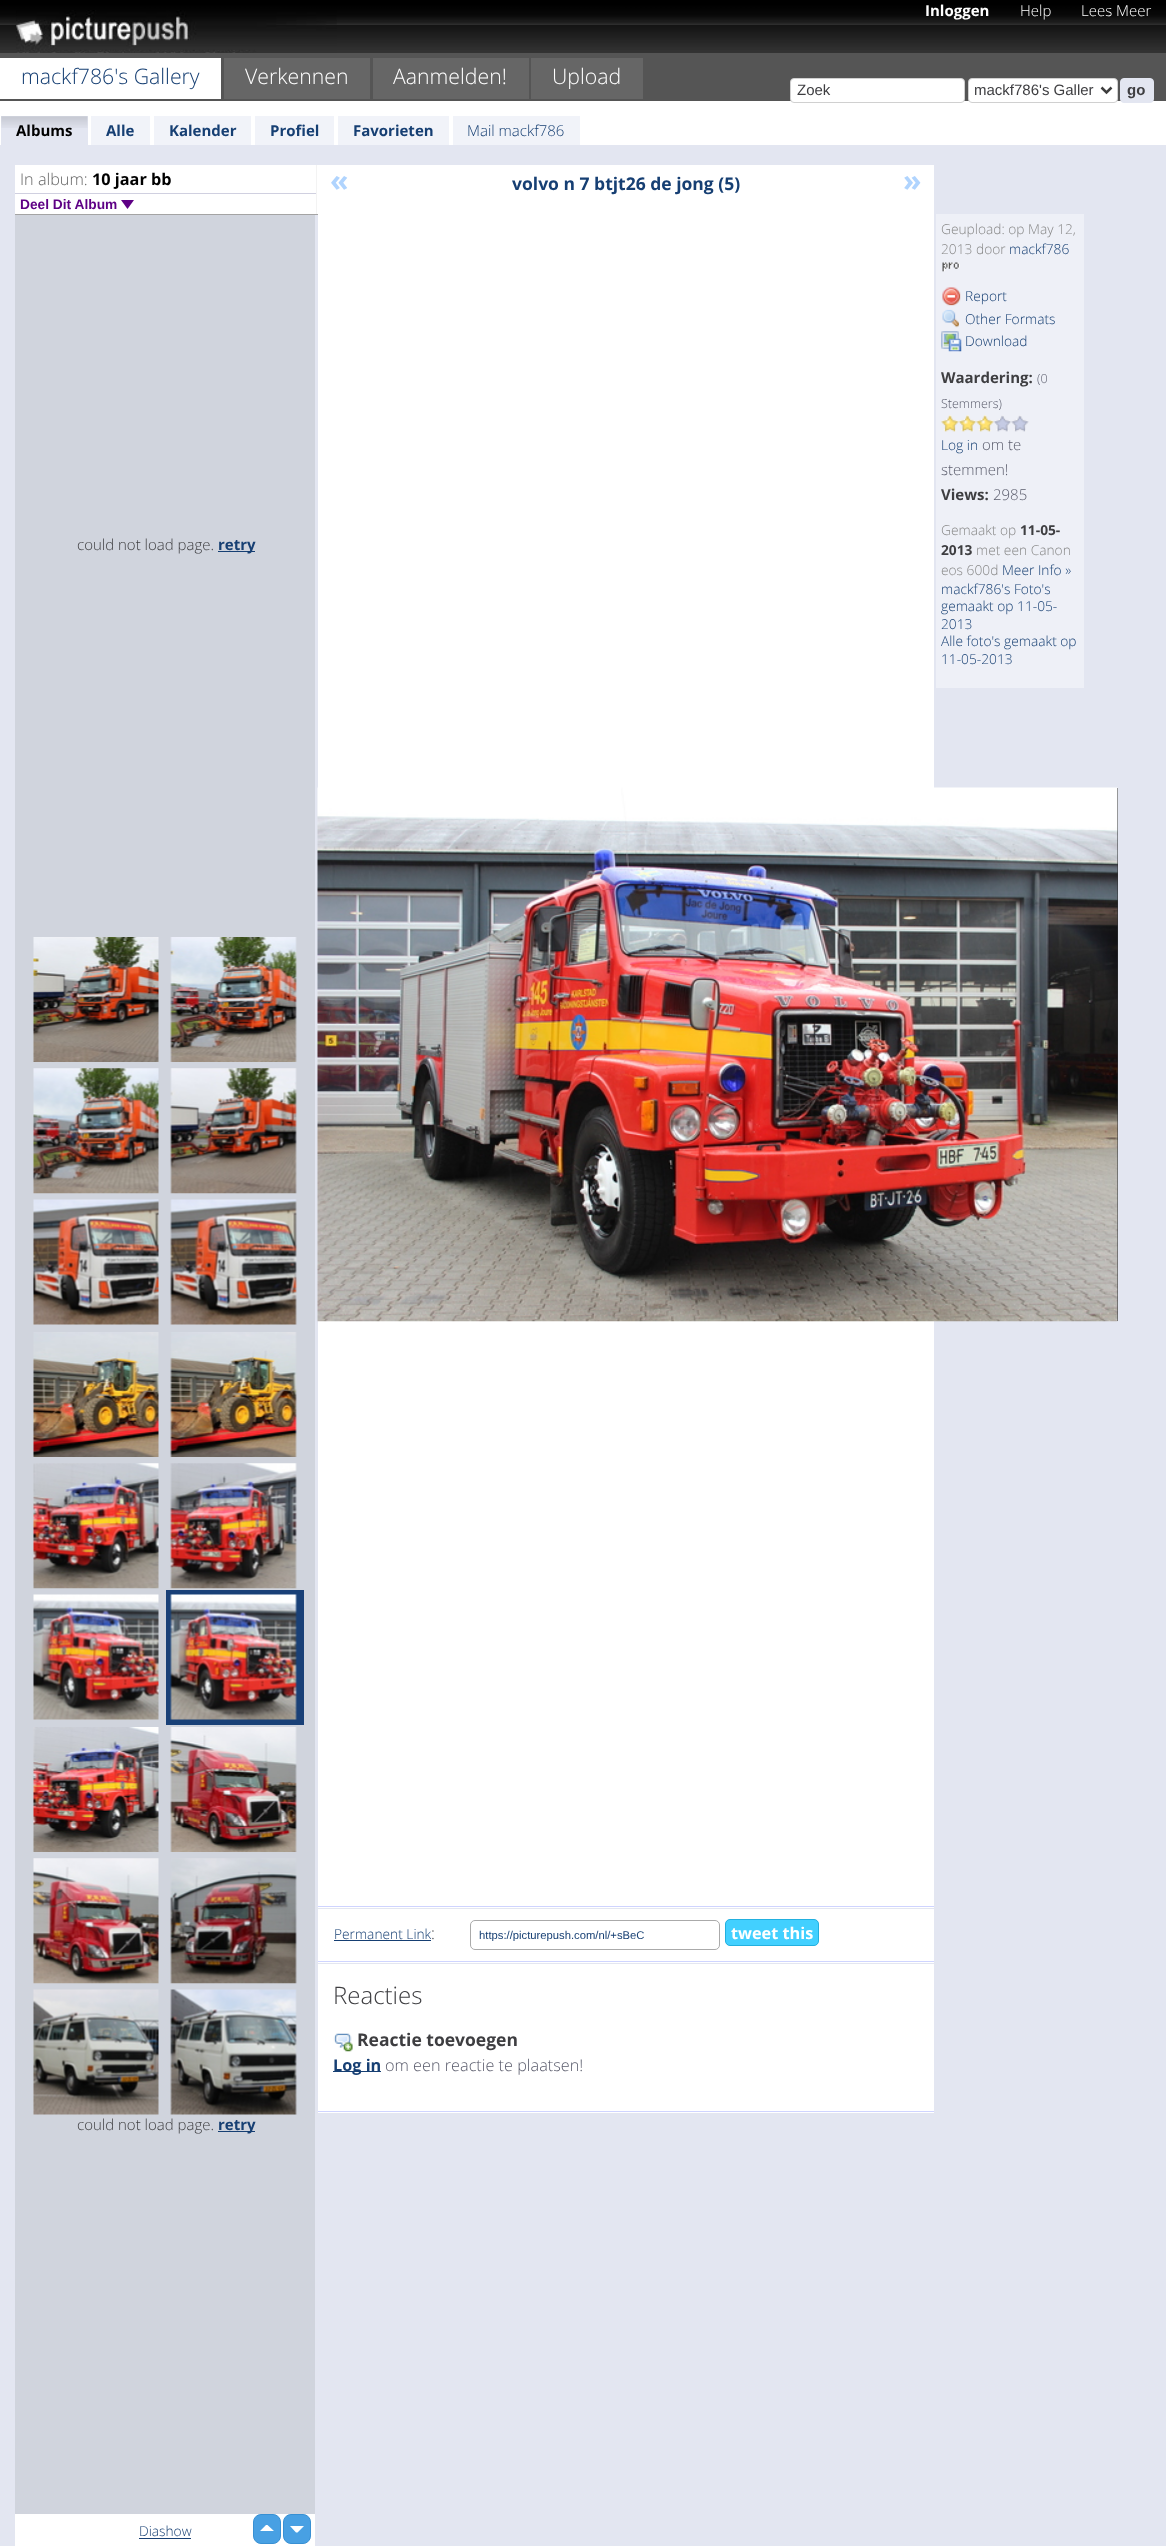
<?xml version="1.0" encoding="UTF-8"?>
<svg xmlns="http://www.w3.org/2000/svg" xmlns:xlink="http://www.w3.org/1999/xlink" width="1166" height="2546">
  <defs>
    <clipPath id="clip1"><rect x="479" y="1929" width="232" height="12" /></clipPath>
  </defs>
  <rect width="100%" height="100%" fill="#e3e6f1" />
  <rect x="1117" y="788" width="1" height="533" fill="#2d2e30" />
  <image x="0" y="0" width="1166" height="53" xlink:href="image1.png" />
  <image x="16" y="10" width="321" height="43" xlink:href="image2.png" />
  <rect y="53" width="1166" height="48" fill="#555555" />
  <rect y="58" width="221" height="41" fill="#ffffff" />
  <rect x="224" y="58" width="146" height="41" fill="#666666" />
  <rect x="373" y="58" width="156" height="41" fill="#666666" />
  <rect x="531" y="58" width="112" height="41" fill="#666666" />
  <rect y="101" width="1166" height="44" fill="#ffffff" />
  <rect x="790.5" y="78.5" width="174" height="24" rx="3.5" fill="#ffffff" stroke="#d0d0d0" />
  <rect x="968.5" y="78.5" width="149" height="24" rx="3.5" fill="#ffffff" stroke="#d0d0d0" />
  <path d="M 1101.5 87.5 l 5 5 l 5 -5" fill="none" stroke="#3e3e3e" stroke-width="2.5" />
  <rect x="1120.5" y="78.5" width="33" height="24" rx="3.5" fill="#e3e6f1" stroke="#e3e6f1" />
  <rect x="1" y="116" width="87" height="29" fill="#e3e6f1" />
  <image x="1" y="116" width="87" height="12" xlink:href="image3.png" />
  <rect x="91" y="116" width="59" height="29" fill="#f1f3f9" />
  <rect x="154" y="116" width="97" height="29" fill="#f1f3f9" />
  <rect x="255" y="116" width="79" height="29" fill="#f1f3f9" />
  <rect x="338" y="116" width="111" height="29" fill="#f1f3f9" />
  <rect x="453" y="116" width="127" height="29" fill="#f1f3f9" />
  <rect x="15" y="165" width="303" height="49" fill="#ffffff" />
  <rect x="316" y="165" width="1" height="50" fill="#f3f3f3" />
  <rect x="15" y="214" width="303" height="1" fill="#a4a4a4" />
  <rect x="15" y="193" width="301" height="1" fill="#d0d0e0" />
  <path d="M 121 200 h 13 l -6.5 9 z" fill="#5e0085" />
  <rect x="15" y="215" width="300" height="2299" fill="#d0d4dd" />
  <rect x="218" y="551" width="37" height="1" fill="#163f73" />
  <image x="33" y="937" width="126" height="125" xlink:href="image4.png" />
  <image x="170" y="937" width="127" height="125" xlink:href="image5.png" />
  <image x="33" y="1068" width="126" height="126" xlink:href="image6.png" />
  <image x="170" y="1068" width="127" height="126" xlink:href="image7.png" />
  <image x="33" y="1199" width="126" height="126" xlink:href="image8.png" />
  <image x="170" y="1199" width="127" height="126" xlink:href="image9.png" />
  <image x="33" y="1332" width="126" height="125" xlink:href="image10.png" />
  <image x="170" y="1332" width="127" height="125" xlink:href="image11.png" />
  <image x="33" y="1463" width="126" height="126" xlink:href="image12.png" />
  <image x="170" y="1463" width="127" height="126" xlink:href="image13.png" />
  <image x="33" y="1594" width="126" height="126" xlink:href="image14.png" />
  <rect x="166" y="1590" width="138" height="135" fill="#194077" />
  <image x="170" y="1594" width="127" height="126" xlink:href="image15.png" />
  <image x="33" y="1727" width="126" height="125" xlink:href="image16.png" />
  <image x="170" y="1727" width="127" height="125" xlink:href="image17.png" />
  <image x="33" y="1858" width="126" height="126" xlink:href="image18.png" />
  <image x="170" y="1858" width="127" height="126" xlink:href="image19.png" />
  <image x="33" y="1989" width="126" height="126" xlink:href="image20.png" />
  <image x="170" y="1989" width="127" height="126" xlink:href="image21.png" />
  <rect x="218" y="2131" width="37" height="1" fill="#163f73" />
  <rect x="15" y="2514" width="300" height="32" fill="#ffffff" />
  <rect x="253.5" y="2514.5" width="27" height="29" rx="7.5" fill="#48a0e3" stroke="#3890d3" />
  <rect x="283.5" y="2514.5" width="27" height="29" rx="7.5" fill="#48a0e3" stroke="#3890d3" />
  <path d="M 274 2531 h -14 l 6 -6 h 1.5 z m 16 -5 h 14 l -6.5 6.5 h -1.5 z" fill="#ffffff" />
  <rect x="139" y="2538" width="52" height="1" fill="#163f73" />
  <rect x="318" y="165" width="616" height="1743" fill="#ffffff" />
  <rect x="318" y="1906" width="616" height="1" fill="#cfd4ff" />
  <rect x="936" y="214" width="148" height="474" fill="#eef0f7" />
  <image x="942" y="262" width="18" height="10" xlink:href="image22.png" />
  <image x="942" y="287" width="19" height="19" xlink:href="image23.png" />
  <image x="942" y="309" width="17" height="19" xlink:href="image24.png" />
  <image x="941" y="331" width="21" height="21" xlink:href="image25.png" />
  <image x="941" y="415" width="18" height="17" xlink:href="image26.png" />
  <image x="958" y="415" width="19" height="17" xlink:href="image27.png" />
  <image x="976" y="415" width="18" height="17" xlink:href="image28.png" />
  <image x="993" y="415" width="19" height="17" xlink:href="image29.png" />
  <image x="1011" y="415" width="18" height="17" xlink:href="image30.png" />
  <image x="317" y="787" width="801" height="535" xlink:href="image31.png" />
  <rect x="318" y="1909" width="616" height="54" fill="#ffffff" />
  <rect x="318" y="1961" width="616" height="1" fill="#cfd4ff" />
  <rect x="334" y="1940" width="97" height="1" fill="#163f73" />
  <rect x="470.5" y="1920.5" width="249" height="29" rx="4.5" fill="none" stroke="#aaaaaa" />
  <rect x="725.5" y="1919.5" width="93" height="26" rx="4.5" fill="#42d0ff" stroke="#22b0df" />
  <rect x="318" y="1964" width="616" height="149" fill="#ffffff" />
  <rect x="318" y="2111" width="616" height="1" fill="#cfd4ff" />
  <image x="333" y="2033" width="20" height="19" xlink:href="image32.png" />
  <rect x="333" y="2071" width="48" height="1" fill="#163f73" />
  <text x="925" y="16" style="font-family: Open Sans; font-size: 15px; font-weight: bold; fill: #ffffff">Inloggen</text>
  <text x="1020" y="16" style="font-family: Open Sans; font-size: 15px; font-weight: 300; fill: #ffffff">Help</text>
  <text x="1081" y="16" style="font-family: Open Sans; font-size: 15px; font-weight: 300; fill: #ffffff">Lees Meer</text>
  <text x="21" y="84" style="font-family: Open Sans; font-size: 21.25px; font-weight: 300; fill: #163f73">mackf786's Gallery</text>
  <text x="245" y="84" style="font-family: Open Sans; font-size: 21.25px; font-weight: 300; fill: #ffffff">Verkennen</text>
  <text x="393" y="84" style="font-family: Open Sans; font-size: 21.25px; font-weight: 300; fill: #ffffff">Aanmelden!</text>
  <text x="552" y="84" style="font-family: Open Sans; font-size: 21.25px; font-weight: 300; fill: #ffffff">Upload</text>
  <text x="797" y="95" style="font-family: Liberation Sans; font-size: 15px; fill: #3e3e41">Zoek</text>
  <text x="974" y="95" style="font-family: Liberation Sans; font-size: 15px; fill: #3e3e41">mackf786's Galler</text>
  <text x="1127" y="95" style="font-family: Liberation Sans; font-size: 15px; font-weight: bold; fill: #3e3e41">go</text>
  <text x="16" y="136" style="font-family: Open Sans; font-size: 15px; font-weight: bold; fill: #000000">Albums</text>
  <text x="106" y="136" style="font-family: Open Sans; font-size: 15px; font-weight: bold; fill: #163f73">Alle</text>
  <text x="169" y="136" style="font-family: Open Sans; font-size: 15px; font-weight: bold; fill: #163f73">Kalender</text>
  <text x="270" y="136" style="font-family: Open Sans; font-size: 15px; font-weight: bold; fill: #163f73">Profiel</text>
  <text x="353" y="136" style="font-family: Open Sans; font-size: 15px; font-weight: bold; fill: #163f73">Favorieten</text>
  <text x="467" y="136" style="font-family: Open Sans; font-size: 15px; font-weight: 300; fill: #163f73">Mail mackf786</text>
  <text x="20" y="185" style="font-family: Open Sans; font-size: 16.25px; font-weight: 300; fill: #666666">In album:</text>
  <text x="92" y="185" style="font-family: Open Sans; font-size: 16.25px; font-weight: bold; fill: #000000">10 jaar bb</text>
  <text x="20" y="209" style="font-family: Liberation Sans; font-size: 13.75px; font-weight: bold; fill: #5e0085">Deel Dit Album</text>
  <text x="77" y="550" style="font-family: Open Sans; font-size: 15px; font-weight: 300; fill: #3e3e41">could not load page.</text>
  <text x="218" y="550" style="font-family: Open Sans; font-size: 15px; font-weight: bold; fill: #163f73">retry</text>
  <text x="77" y="2130" style="font-family: Open Sans; font-size: 15px; font-weight: 300; fill: #3e3e41">could not load page.</text>
  <text x="218" y="2130" style="font-family: Open Sans; font-size: 15px; font-weight: bold; fill: #163f73">retry</text>
  <text x="139" y="2536" style="font-family: Open Sans; font-size: 13.75px; font-weight: 300; fill: #163f73">Diashow</text>
  <text x="330" y="191" style="font-family: Open Sans; font-size: 30px; font-weight: bold; fill: #b0d4fe">«</text>
  <text x="512" y="190" style="font-family: Open Sans; font-size: 17.5px; font-weight: bold; fill: #163f73">volvo n 7 btjt26 de jong (5)</text>
  <text x="903" y="191" style="font-family: Open Sans; font-size: 30px; font-weight: bold; fill: #b0d4fe">»</text>
  <text x="941" y="234" style="font-family: Open Sans; font-size: 13.75px; font-weight: 300; fill: #888888">Geupload: op May 12,</text>
  <text x="941" y="254" style="font-family: Open Sans; font-size: 13.75px; font-weight: 300; fill: #888888">2013 door</text>
  <text x="1009" y="254" style="font-family: Open Sans; font-size: 13.75px; font-weight: 300; fill: #163f73">mackf786</text>
  <text x="965" y="301" style="font-family: Open Sans; font-size: 13.75px; font-weight: 300; fill: #163f73">Report</text>
  <text x="965" y="324" style="font-family: Open Sans; font-size: 13.75px; font-weight: 300; fill: #163f73">Other Formats</text>
  <text x="965" y="346" style="font-family: Open Sans; font-size: 13.75px; font-weight: 300; fill: #163f73">Download</text>
  <text x="941" y="383" style="font-family: Open Sans; font-size: 15px; font-weight: bold; fill: #3e3e41">Waardering:</text>
  <text x="1037" y="383" style="font-family: Open Sans; font-size: 12.5px; font-weight: 300; fill: #5a5c6c">(0</text>
  <text x="941" y="408" style="font-family: Open Sans; font-size: 12.5px; font-weight: 300; fill: #5a5c6c">Stemmers)</text>
  <text x="941" y="450" style="font-family: Open Sans; font-size: 13.75px; font-weight: 300; fill: #163f73">Log in</text>
  <text x="982" y="450" style="font-family: Open Sans; font-size: 15px; font-weight: 300; fill: #5a5c6c">om te</text>
  <text x="941" y="475" style="font-family: Open Sans; font-size: 15px; font-weight: 300; fill: #5a5c6c">stemmen!</text>
  <text x="941" y="500" style="font-family: Open Sans; font-size: 15px; font-weight: bold; fill: #3e3e41">Views:</text>
  <text x="993" y="500" style="font-family: Open Sans; font-size: 15px; font-weight: 300; fill: #5a5c6c">2985</text>
  <text x="941" y="535" style="font-family: Open Sans; font-size: 13.75px; font-weight: 300; fill: #888888">Gemaakt op</text>
  <text x="1020" y="535" style="font-family: Open Sans; font-size: 13.75px; font-weight: bold; fill: #3e3e41">11-05-</text>
  <text x="941" y="555" style="font-family: Open Sans; font-size: 13.75px; font-weight: bold; fill: #3e3e41">2013</text>
  <text x="976" y="555" style="font-family: Open Sans; font-size: 13.75px; font-weight: 300; fill: #888888">met een Canon</text>
  <text x="941" y="575" style="font-family: Open Sans; font-size: 13.75px; font-weight: 300; fill: #888888">eos 600d</text>
  <text x="1002" y="575" style="font-family: Open Sans; font-size: 13.75px; font-weight: 300; fill: #163f73">Meer Info »</text>
  <text x="941" y="594" style="font-family: Open Sans; font-size: 13.75px; font-weight: 300; fill: #163f73">mackf786's Foto's</text>
  <text x="941" y="611" style="font-family: Open Sans; font-size: 13.75px; font-weight: 300; fill: #163f73">gemaakt op 11-05-</text>
  <text x="941" y="629" style="font-family: Open Sans; font-size: 13.75px; font-weight: 300; fill: #163f73">2013</text>
  <text x="941" y="646" style="font-family: Open Sans; font-size: 13.75px; font-weight: 300; fill: #163f73">Alle foto's gemaakt op</text>
  <text x="941" y="664" style="font-family: Open Sans; font-size: 13.75px; font-weight: 300; fill: #163f73">11-05-2013</text>
  <text x="334" y="1939" style="font-family: Open Sans; font-size: 13.75px; font-weight: 300; fill: #163f73">Permanent Link</text>
  <text x="431" y="1939" style="font-family: Open Sans; font-size: 16.25px; font-weight: 300; fill: #3e3e41">:</text>
  <g clip-path="url(#clip1)">
    <text x="479" y="1939" style="font-family: Liberation Sans; font-size: 11.25px; fill: #163f73">https://picturepush.com/nl/+sBeC</text>
  </g>
  <text x="731" y="1939" style="font-family: Open Sans; font-size: 16.25px; font-weight: bold; fill: #ffffff">tweet this</text>
  <text x="333" y="2004" style="font-family: Open Sans; font-size: 24px; font-weight: 300; fill: #3e3e41">Reacties</text>
  <text x="357" y="2046" style="font-family: Open Sans; font-size: 17.5px; font-weight: bold; fill: #3e3e41">Reactie toevoegen</text>
  <text x="333" y="2071" style="font-family: Open Sans; font-size: 16.25px; font-weight: bold; fill: #163f73">Log in</text>
  <text x="385" y="2071" style="font-family: Open Sans; font-size: 16.25px; font-weight: 300; fill: #5a5c6c">om een reactie te plaatsen!</text>
</svg>
